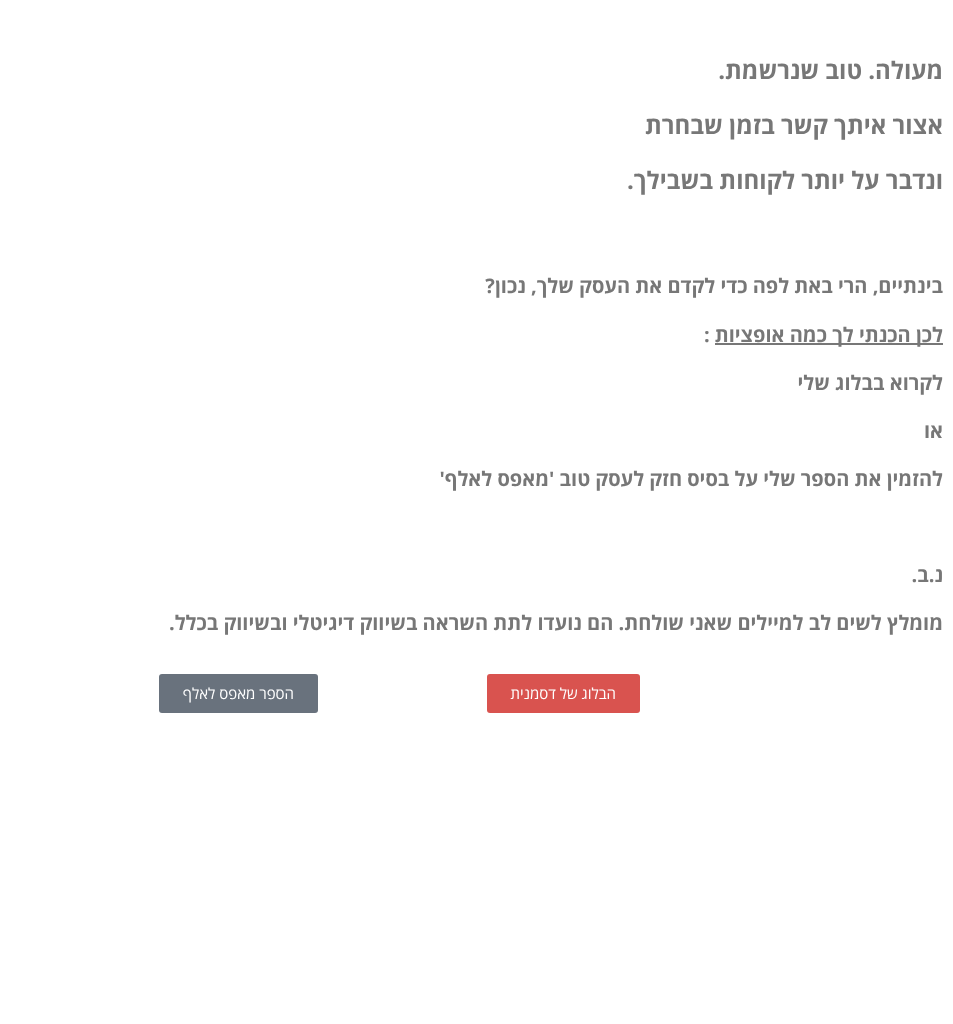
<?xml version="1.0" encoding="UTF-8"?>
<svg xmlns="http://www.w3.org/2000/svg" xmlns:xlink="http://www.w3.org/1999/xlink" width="953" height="1024">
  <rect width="100%" height="100%" fill="#ffffff" />
  <rect x="715" y="343" width="228" height="2" fill="#777777" />
  <rect x="487" y="674" width="153" height="39" rx="3" fill="#d9534f" />
  <rect x="159" y="674" width="159" height="39" rx="3" fill="#69727d" />
  <text x="943" y="79" style="font-family: Open Sans; font-size: 24px; font-weight: bold; direction: rtl; fill: #777777">מעולה. טוב שנרשמת.</text>
  <text x="943" y="134" style="font-family: Open Sans; font-size: 24px; font-weight: bold; direction: rtl; fill: #777777">אצור איתך קשר בזמן שבחרת</text>
  <text x="943" y="189" style="font-family: Open Sans; font-size: 24px; font-weight: bold; direction: rtl; fill: #777777">ונדבר על יותר לקוחות בשבילך.</text>
  <text x="943" y="293" style="font-family: Open Sans; font-size: 20px; font-weight: bold; direction: rtl; fill: #777777">בינתיים, הרי באת לפה כדי לקדם את העסק שלך, נכון?</text>
  <text x="943" y="342" style="font-family: Open Sans; font-size: 20px; font-weight: bold; direction: rtl; fill: #777777">לכן הכנתי לך כמה אופציות</text>
  <text x="704" y="342" style="font-family: Open Sans; font-size: 20px; font-weight: bold; fill: #777777">:</text>
  <text x="943" y="390" style="font-family: Open Sans; font-size: 20px; font-weight: bold; direction: rtl; fill: #777777">לקרוא בבלוג שלי</text>
  <text x="943" y="438" style="font-family: Open Sans; font-size: 20px; font-weight: bold; direction: rtl; fill: #777777">או</text>
  <text x="943" y="486" style="font-family: Open Sans; font-size: 20px; font-weight: bold; direction: rtl; fill: #777777">להזמין את הספר שלי על בסיס חזק לעסק טוב 'מאפס לאלף'</text>
  <text x="943" y="582" style="font-family: Open Sans; font-size: 20px; font-weight: bold; direction: rtl; fill: #777777">נ.ב.</text>
  <text x="943" y="630" style="font-family: Open Sans; font-size: 20px; font-weight: bold; direction: rtl; fill: #777777">מומלץ לשים לב למיילים שאני שולחת. הם נועדו לתת השראה בשיווק דיגיטלי ובשיווק בכלל.</text>
  <text x="616" y="699" style="font-family: Open Sans; font-size: 15px; direction: rtl; fill: #ffffff">הבלוג של דסמנית</text>
  <text x="294" y="699" style="font-family: Open Sans; font-size: 15px; direction: rtl; fill: #ffffff">הספר מאפס לאלף</text>
</svg>
